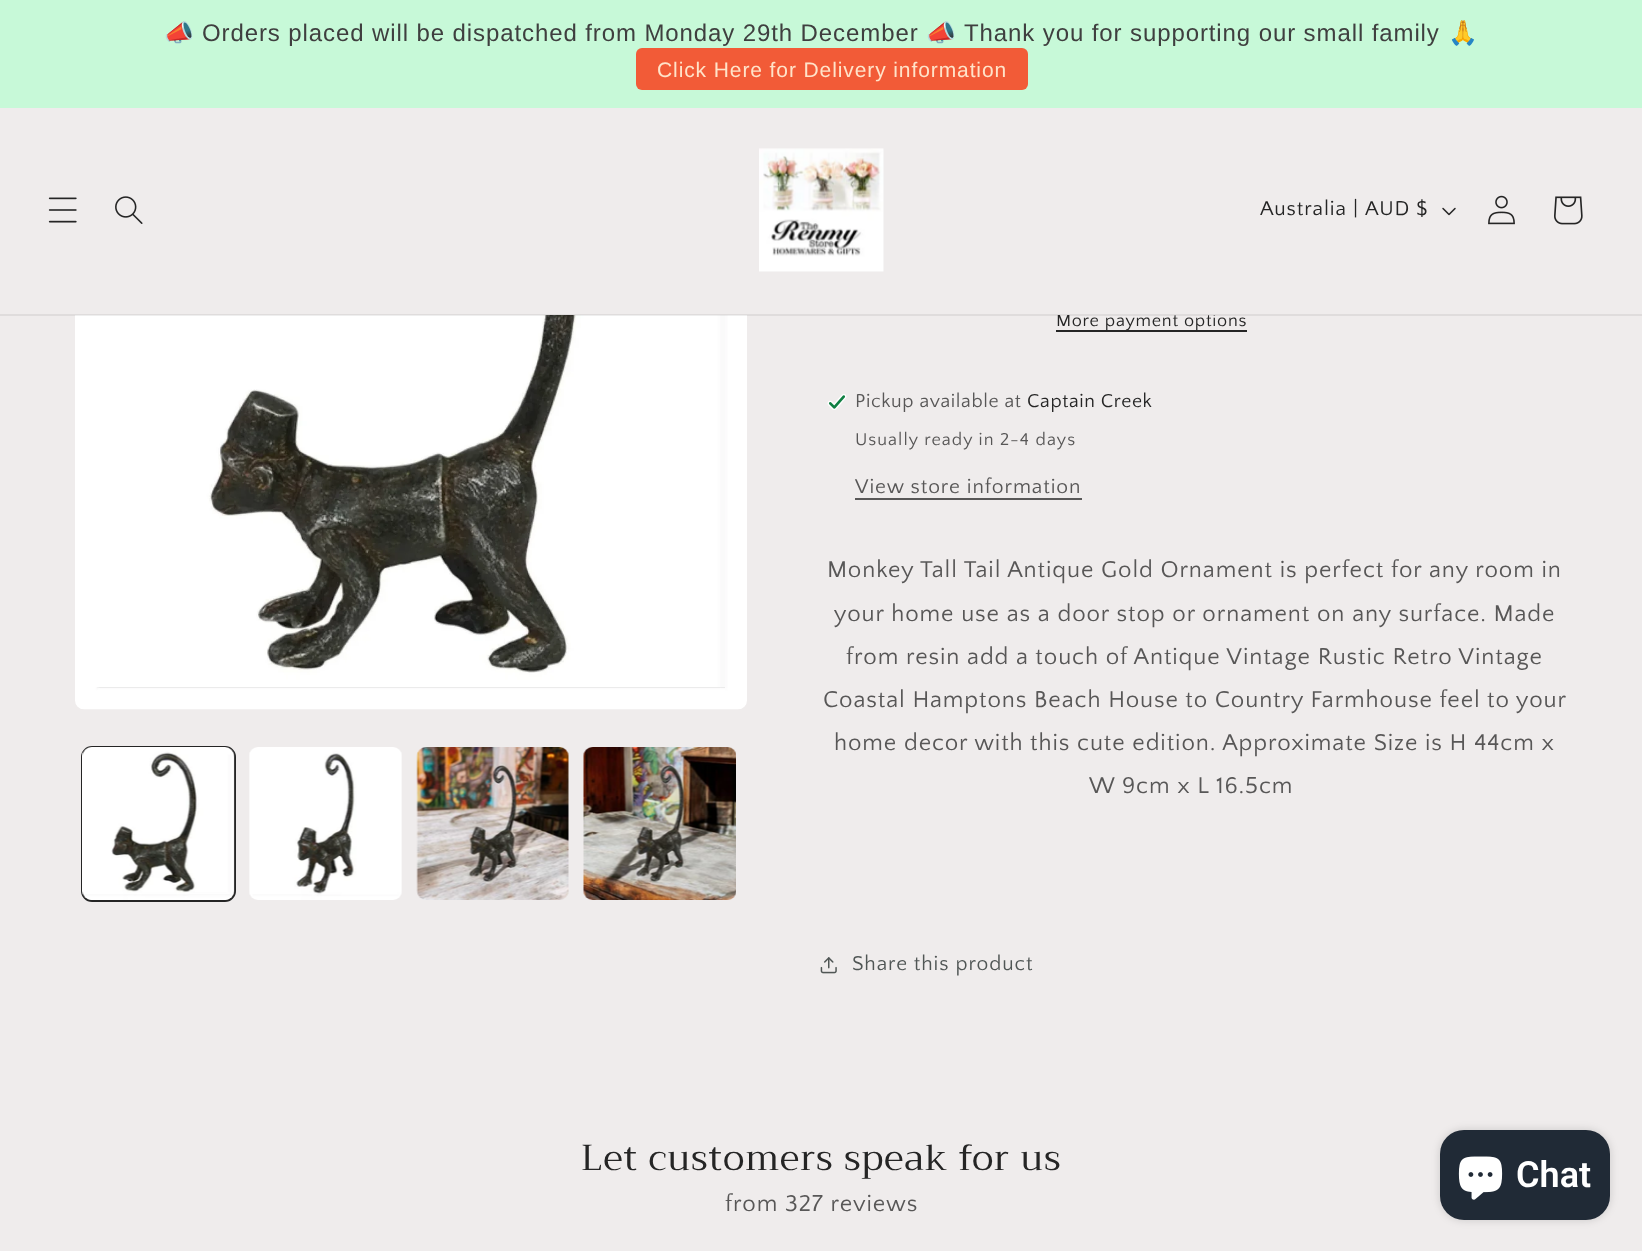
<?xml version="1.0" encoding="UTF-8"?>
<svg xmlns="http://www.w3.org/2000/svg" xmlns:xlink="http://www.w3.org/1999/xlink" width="1642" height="1251">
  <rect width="100%" height="100%" fill="#efecec" />
  <rect width="1642" height="108" fill="#c7f9d8" />
  <rect x="636" y="48" width="392" height="42" rx="6" fill="#f25b37" />
  <image x="48" y="197" width="29" height="26" xlink:href="image1.png" />
  <image x="115" y="196" width="28" height="28" xlink:href="image2.png" />
  <image x="759" y="148" width="125" height="124" xlink:href="image3.png" />
  <image x="1442" y="207" width="14" height="9" xlink:href="image4.png" />
  <image x="1488" y="195" width="27" height="30" xlink:href="image5.png" />
  <image x="1554" y="196" width="29" height="29" xlink:href="image6.png" />
  <image x="75" y="315" width="672" height="395" xlink:href="image7.png" />
  <rect x="82" y="747" width="153" height="154" rx="10" fill="none" stroke="#252525" stroke-width="2" />
  <image x="82" y="747" width="153" height="153" xlink:href="image8.png" />
  <image x="249" y="747" width="153" height="153" xlink:href="image9.png" />
  <image x="416" y="747" width="153" height="153" xlink:href="image10.png" />
  <image x="583" y="747" width="153" height="153" xlink:href="image11.png" />
  <rect x="1056" y="330" width="191" height="2" fill="#252525" />
  <image x="827" y="394" width="20" height="16" xlink:href="image12.png" />
  <rect x="855" y="498" width="227" height="2" fill="#585757" />
  <image x="820" y="957" width="17" height="17" xlink:href="image13.png" />
  <rect x="1440" y="1130" width="170" height="90" rx="24" fill="#000000" fill-opacity="0.15" filter="blur(4px)" />
  <rect x="1440" y="1130" width="170" height="90" rx="24" fill="#202a36" />
  <image x="1458" y="1156" width="45" height="44" xlink:href="image14.png" />
  <text x="164" y="41" style="font-family: Noto Color Emoji; font-size: 24px; letter-spacing: 0.9px; fill: #3f3f3f">📣</text>
  <text x="202" y="41" style="font-family: Liberation Sans; font-size: 24px; letter-spacing: 0.9px; fill: #3f3f3f">Orders placed will be dispatched from Monday 29th December</text>
  <text x="926" y="41" style="font-family: Noto Color Emoji; font-size: 24px; letter-spacing: 0.9px; fill: #3f3f3f">📣</text>
  <text x="964" y="41" style="font-family: Liberation Sans; font-size: 24px; letter-spacing: 0.9px; fill: #3f3f3f">Thank you for supporting our small family</text>
  <text x="1448" y="41" style="font-family: Noto Color Emoji; font-size: 24px; letter-spacing: 0.9px; fill: #3f3f3f">🙏</text>
  <text x="657" y="77" style="font-family: Liberation Sans; font-size: 21px; letter-spacing: 0.9px; fill: #ffe3c9">Click Here for Delivery information</text>
  <text x="1260" y="215" style="font-family: Quattrocento Sans; font-size: 21px; letter-spacing: 0.9px; fill: #252525">Australia |</text>
  <text x="1365" y="215" style="font-family: Quattrocento Sans; font-size: 21px; letter-spacing: 0.9px; fill: #252525">AUD $</text>
  <text x="1056" y="326" style="font-family: Quattrocento Sans; font-size: 18px; letter-spacing: 0.75px; fill: #252525">More payment options</text>
  <rect x="1057" y="313" width="159" height="2" fill="#efecec" />
  <rect y="314" width="1642" height="2" fill="#252525" fill-opacity="0.08" />
  <text x="855" y="407" style="font-family: Quattrocento Sans; font-size: 19.5px; letter-spacing: 0.6px; fill: #585757">Pickup available at</text>
  <text x="1027" y="407" style="font-family: Quattrocento Sans; font-size: 19.5px; letter-spacing: 0.6px; fill: #252525">Captain Creek</text>
  <text x="855" y="445" style="font-family: Quattrocento Sans; font-size: 18px; letter-spacing: 1.05px; fill: #585757">Usually ready in 2-4 days</text>
  <text x="855" y="493" style="font-family: Quattrocento Sans; font-size: 21px; letter-spacing: 0.9px; fill: #585757">View store information</text>
  <text x="827" y="577" style="font-family: Quattrocento Sans; font-size: 24px; letter-spacing: 0.9px; fill: #585757">Monkey Tall Tail Antique Gold Ornament is perfect for any room in</text>
  <text x="834" y="621" style="font-family: Quattrocento Sans; font-size: 24px; letter-spacing: 0.9px; fill: #585757">your home use as a door stop or ornament on any surface. Made</text>
  <text x="846" y="664" style="font-family: Quattrocento Sans; font-size: 24px; letter-spacing: 0.9px; fill: #585757">from resin add a touch of Antique Vintage Rustic Retro Vintage</text>
  <text x="823" y="707" style="font-family: Quattrocento Sans; font-size: 24px; letter-spacing: 0.9px; fill: #585757">Coastal Hamptons Beach House to Country Farmhouse feel to your</text>
  <text x="834" y="750" style="font-family: Quattrocento Sans; font-size: 24px; letter-spacing: 0.9px; fill: #585757">home decor with this cute edition. Approximate Size is H 44cm x</text>
  <text x="1089" y="793" style="font-family: Quattrocento Sans; font-size: 24px; letter-spacing: 0.9px; fill: #585757">W 9cm x L 16.5cm</text>
  <text x="852" y="970" style="font-family: Quattrocento Sans; font-size: 21px; letter-spacing: 0.9px; fill: #505655">Share this product</text>
  <text x="581" y="1170" style="font-family: Trirong; font-size: 36px; letter-spacing: 0.9px; fill: #252525">Let customers speak for us</text>
  <text x="725" y="1211" style="font-family: Quattrocento Sans; font-size: 24px; letter-spacing: 0.9px; fill: #585757">from 327 reviews</text>
  <text x="1516" y="1187" style="font-family: Roboto; font-size: 36px; font-weight: 600; fill: #ffffff">Chat</text>
</svg>
